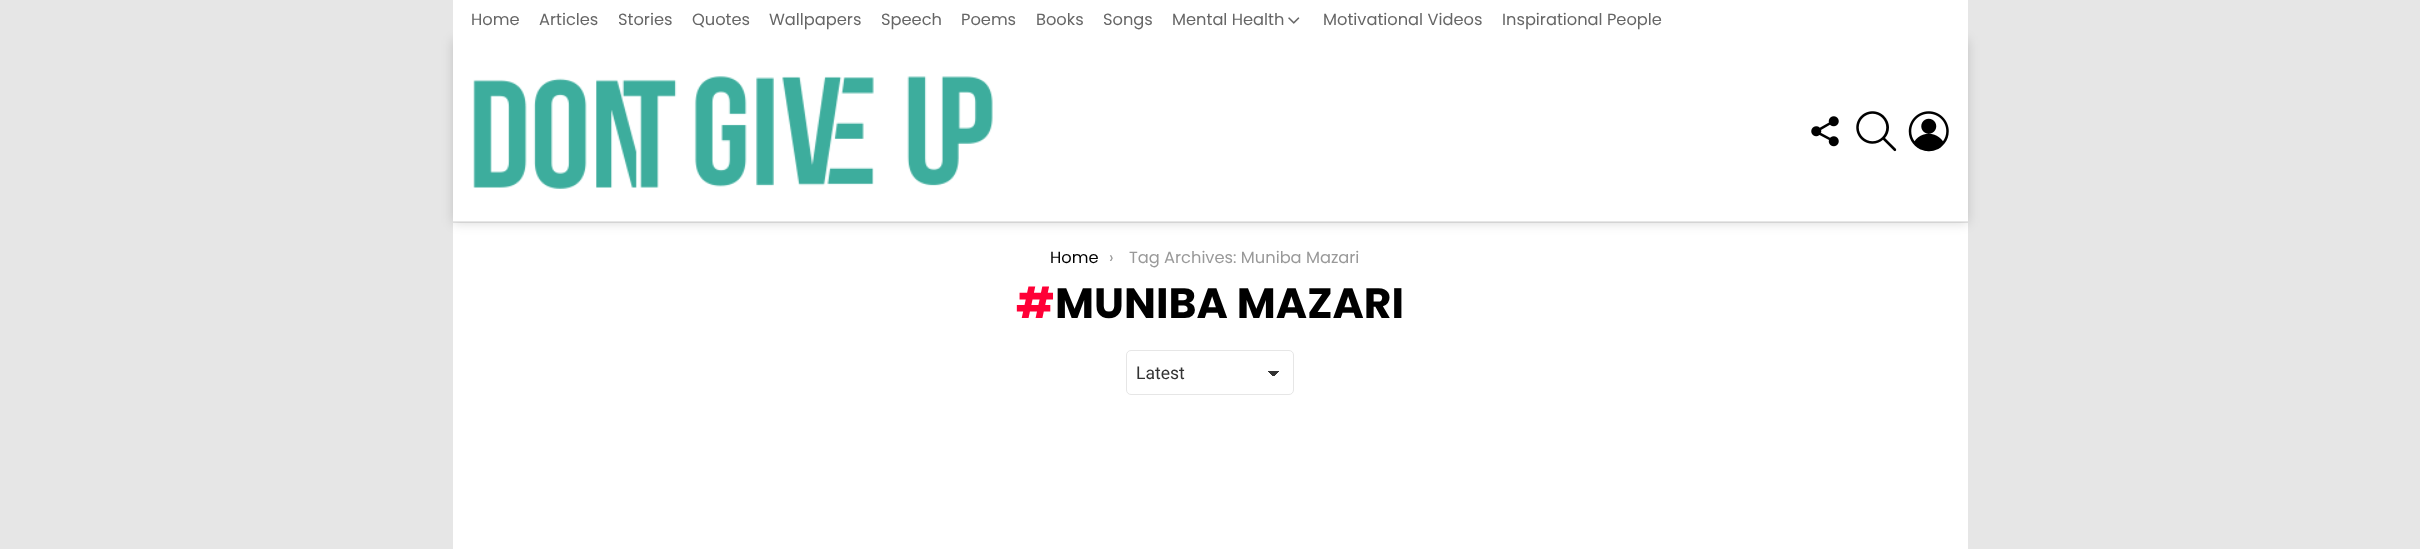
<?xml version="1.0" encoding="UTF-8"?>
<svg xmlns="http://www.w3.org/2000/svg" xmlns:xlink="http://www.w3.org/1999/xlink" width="2420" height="549">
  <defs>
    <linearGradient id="g1" gradientUnits="userSpaceOnUse" x1="1274" y1="371" x2="1280" y2="377"><stop offset="0.5" stop-color="#333333" /><stop offset="0.5" stop-color="#ffffff" /></linearGradient>
    <linearGradient id="g2" gradientUnits="userSpaceOnUse" x1="1268" y1="377" x2="1273" y2="371"><stop offset="0.5" stop-color="#ffffff" /><stop offset="0.5" stop-color="#333333" /></linearGradient>
  </defs>
  <rect width="100%" height="100%" fill="#e6e6e6" />
  <rect x="453" y="223" width="1515" height="326" fill="#ffffff" />
  <rect x="453" y="40" width="1515" height="183" fill="#000000" fill-opacity="0.15" filter="blur(6px)" />
  <rect x="453" width="1515" height="221" fill="#ffffff" />
  <rect x="453" y="221" width="1515" height="1" fill="#e6e6e6" />
  <image x="473" y="76" width="520" height="113" xlink:href="image1.png" />
  <image x="1811" y="116" width="28" height="31" xlink:href="image2.png" />
  <image x="1856" y="111" width="41" height="41" xlink:href="image3.png" />
  <image x="1908" y="111" width="41" height="41" xlink:href="image4.png" />
  <image x="1288" y="17" width="12" height="7" xlink:href="image5.png" />
  <rect x="1274" y="371" width="6" height="5" fill="url(#g1)" />
  <rect x="1268" y="371" width="6" height="5" fill="url(#g2)" />
  <rect x="1126.5" y="350.5" width="167" height="44" rx="4.5" fill="none" stroke="#e6e6e6" />
  <text x="471" y="25" style="font-family: Poppins; font-size: 16.25px; fill: #666666">Home</text>
  <text x="539" y="25" style="font-family: Poppins; font-size: 16.25px; fill: #666666">Articles</text>
  <text x="618" y="25" style="font-family: Poppins; font-size: 16.25px; fill: #666666">Stories</text>
  <text x="692" y="25" style="font-family: Poppins; font-size: 16.25px; fill: #666666">Quotes</text>
  <text x="769" y="25" style="font-family: Poppins; font-size: 16.25px; fill: #666666">Wallpapers</text>
  <text x="881" y="25" style="font-family: Poppins; font-size: 16.25px; fill: #666666">Speech</text>
  <text x="961" y="25" style="font-family: Poppins; font-size: 16.25px; fill: #666666">Poems</text>
  <text x="1036" y="25" style="font-family: Poppins; font-size: 16.25px; fill: #666666">Books</text>
  <text x="1103" y="25" style="font-family: Poppins; font-size: 16.25px; fill: #666666">Songs</text>
  <text x="1172" y="25" style="font-family: Poppins; font-size: 16.25px; fill: #666666">Mental Health</text>
  <text x="1323" y="25" style="font-family: Poppins; font-size: 16.25px; fill: #666666">Motivational Videos</text>
  <text x="1502" y="25" style="font-family: Poppins; font-size: 16.25px; fill: #666666">Inspirational People</text>
  <text x="1050" y="263" style="font-family: Poppins; font-size: 16.25px; fill: #000000">Home</text>
  <text x="1109" y="263" style="font-family: Poppins; font-size: 16.25px; fill: #999999">›</text>
  <text x="1129" y="263" style="font-family: Poppins; font-size: 16.25px; fill: #999999">Tag Archives: Muniba Mazari</text>
  <text x="1016" y="318" style="font-family: Poppins; font-size: 42.5px; font-weight: bold; fill: #ff0036">#</text>
  <text x="1055" y="318" style="font-family: Poppins; font-size: 42.5px; font-weight: bold; fill: #000000">MUNIBA MAZARI</text>
  <text x="1136" y="379" style="font-family: Roboto; font-size: 17.5px; fill: #333333">Latest</text>
</svg>
